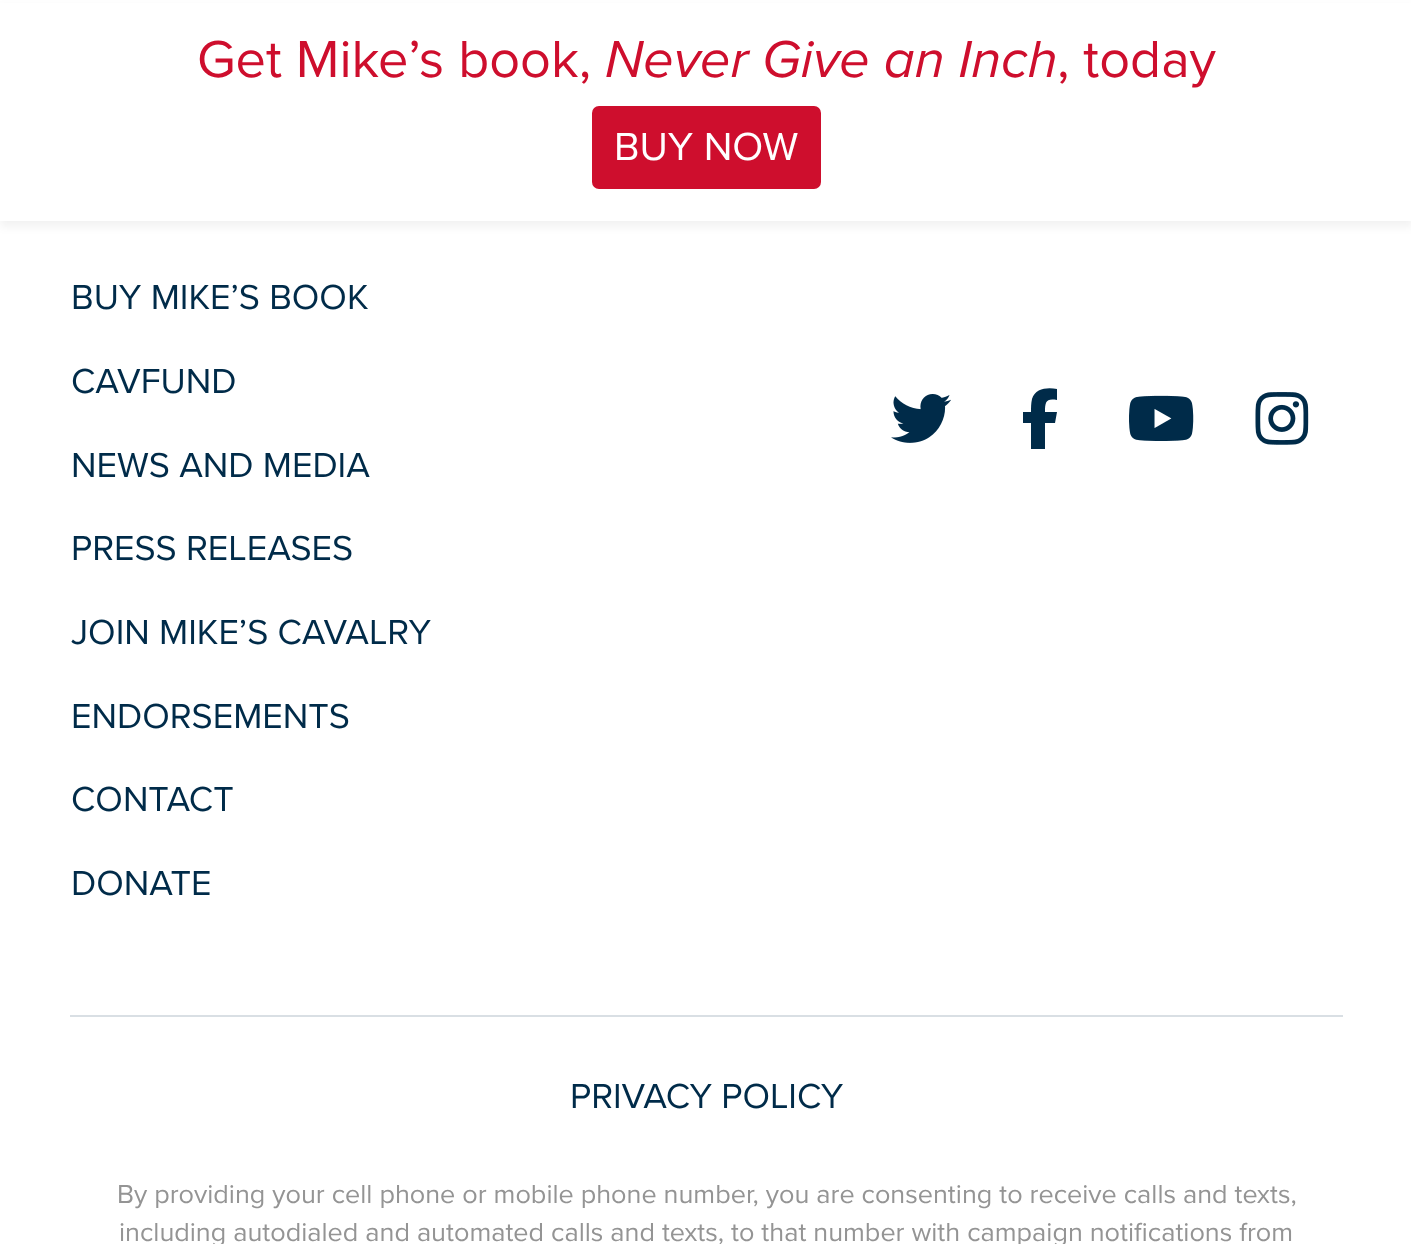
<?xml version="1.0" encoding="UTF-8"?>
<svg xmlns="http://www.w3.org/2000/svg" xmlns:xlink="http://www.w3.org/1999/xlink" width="1411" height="1244">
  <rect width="100%" height="100%" fill="#ffffff" />
  <rect y="7" width="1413" height="220" fill="#000000" fill-opacity="0.05" filter="blur(4.5px)" />
  <rect y="3" width="1411" height="218" fill="#ffffff" />
  <rect x="592" y="106" width="229" height="83" rx="7" fill="#ce0e2d" />
  <image x="891" y="394" width="60" height="49" xlink:href="image1.png" />
  <path d="M 1031 423 v 26 v -26 v 26 h 14 v -26 h 10 l 2 -11 h -12 c 0 -10 1 -14 12 -12 v -11 c -9 -2 -22 -1 -25 10 c -1 4 -1 9 -1 13 h -8 v 11 z" fill="#002b49" />
  <image x="1129" y="395" width="65" height="46" xlink:href="image2.png" />
  <image x="1255" y="392" width="54" height="53" xlink:href="image3.png" />
  <rect x="70" y="1015" width="1273" height="2" fill="#d9dfe4" />
  <text x="197" y="77" style="font-family: Proxima Nova; font-size: 54px; fill: #ce0e2d">Get Mike’s book,</text>
  <text x="605" y="77" style="font-family: Proxima Nova; font-size: 54px; font-style: italic; fill: #ce0e2d">Never Give an Inch</text>
  <text x="1057" y="77" style="font-family: Proxima Nova; font-size: 54px; fill: #ce0e2d">, today</text>
  <text x="614" y="160" style="font-family: Proxima Nova; font-size: 40.5px; fill: #ffffff">BUY NOW</text>
  <text x="71" y="309" style="font-family: Proxima Nova; font-size: 36px; fill: #002b49">BUY MIKE’S BOOK</text>
  <text x="71" y="393" style="font-family: Proxima Nova; font-size: 36px; fill: #002b49">CAVFUND</text>
  <text x="71" y="477" style="font-family: Proxima Nova; font-size: 36px; fill: #002b49">NEWS AND MEDIA</text>
  <text x="71" y="560" style="font-family: Proxima Nova; font-size: 36px; fill: #002b49">PRESS RELEASES</text>
  <text x="71" y="644" style="font-family: Proxima Nova; font-size: 36px; fill: #002b49">JOIN MIKE’S CAVALRY</text>
  <text x="71" y="728" style="font-family: Proxima Nova; font-size: 36px; fill: #002b49">ENDORSEMENTS</text>
  <text x="71" y="811" style="font-family: Proxima Nova; font-size: 36px; fill: #002b49">CONTACT</text>
  <text x="71" y="895" style="font-family: Proxima Nova; font-size: 36px; fill: #002b49">DONATE</text>
  <text x="570" y="1108" style="font-family: Proxima Nova; font-size: 36px; fill: #002b49">PRIVACY POLICY</text>
  <text x="117" y="1203" style="font-family: Proxima Nova; font-size: 27px; fill: #949494">By providing your cell phone or mobile phone number, you are consenting to receive calls and texts,</text>
  <text x="119" y="1241" style="font-family: Proxima Nova; font-size: 27px; fill: #949494">including autodialed and automated calls and texts, to that number with campaign notifications from</text>
</svg>
